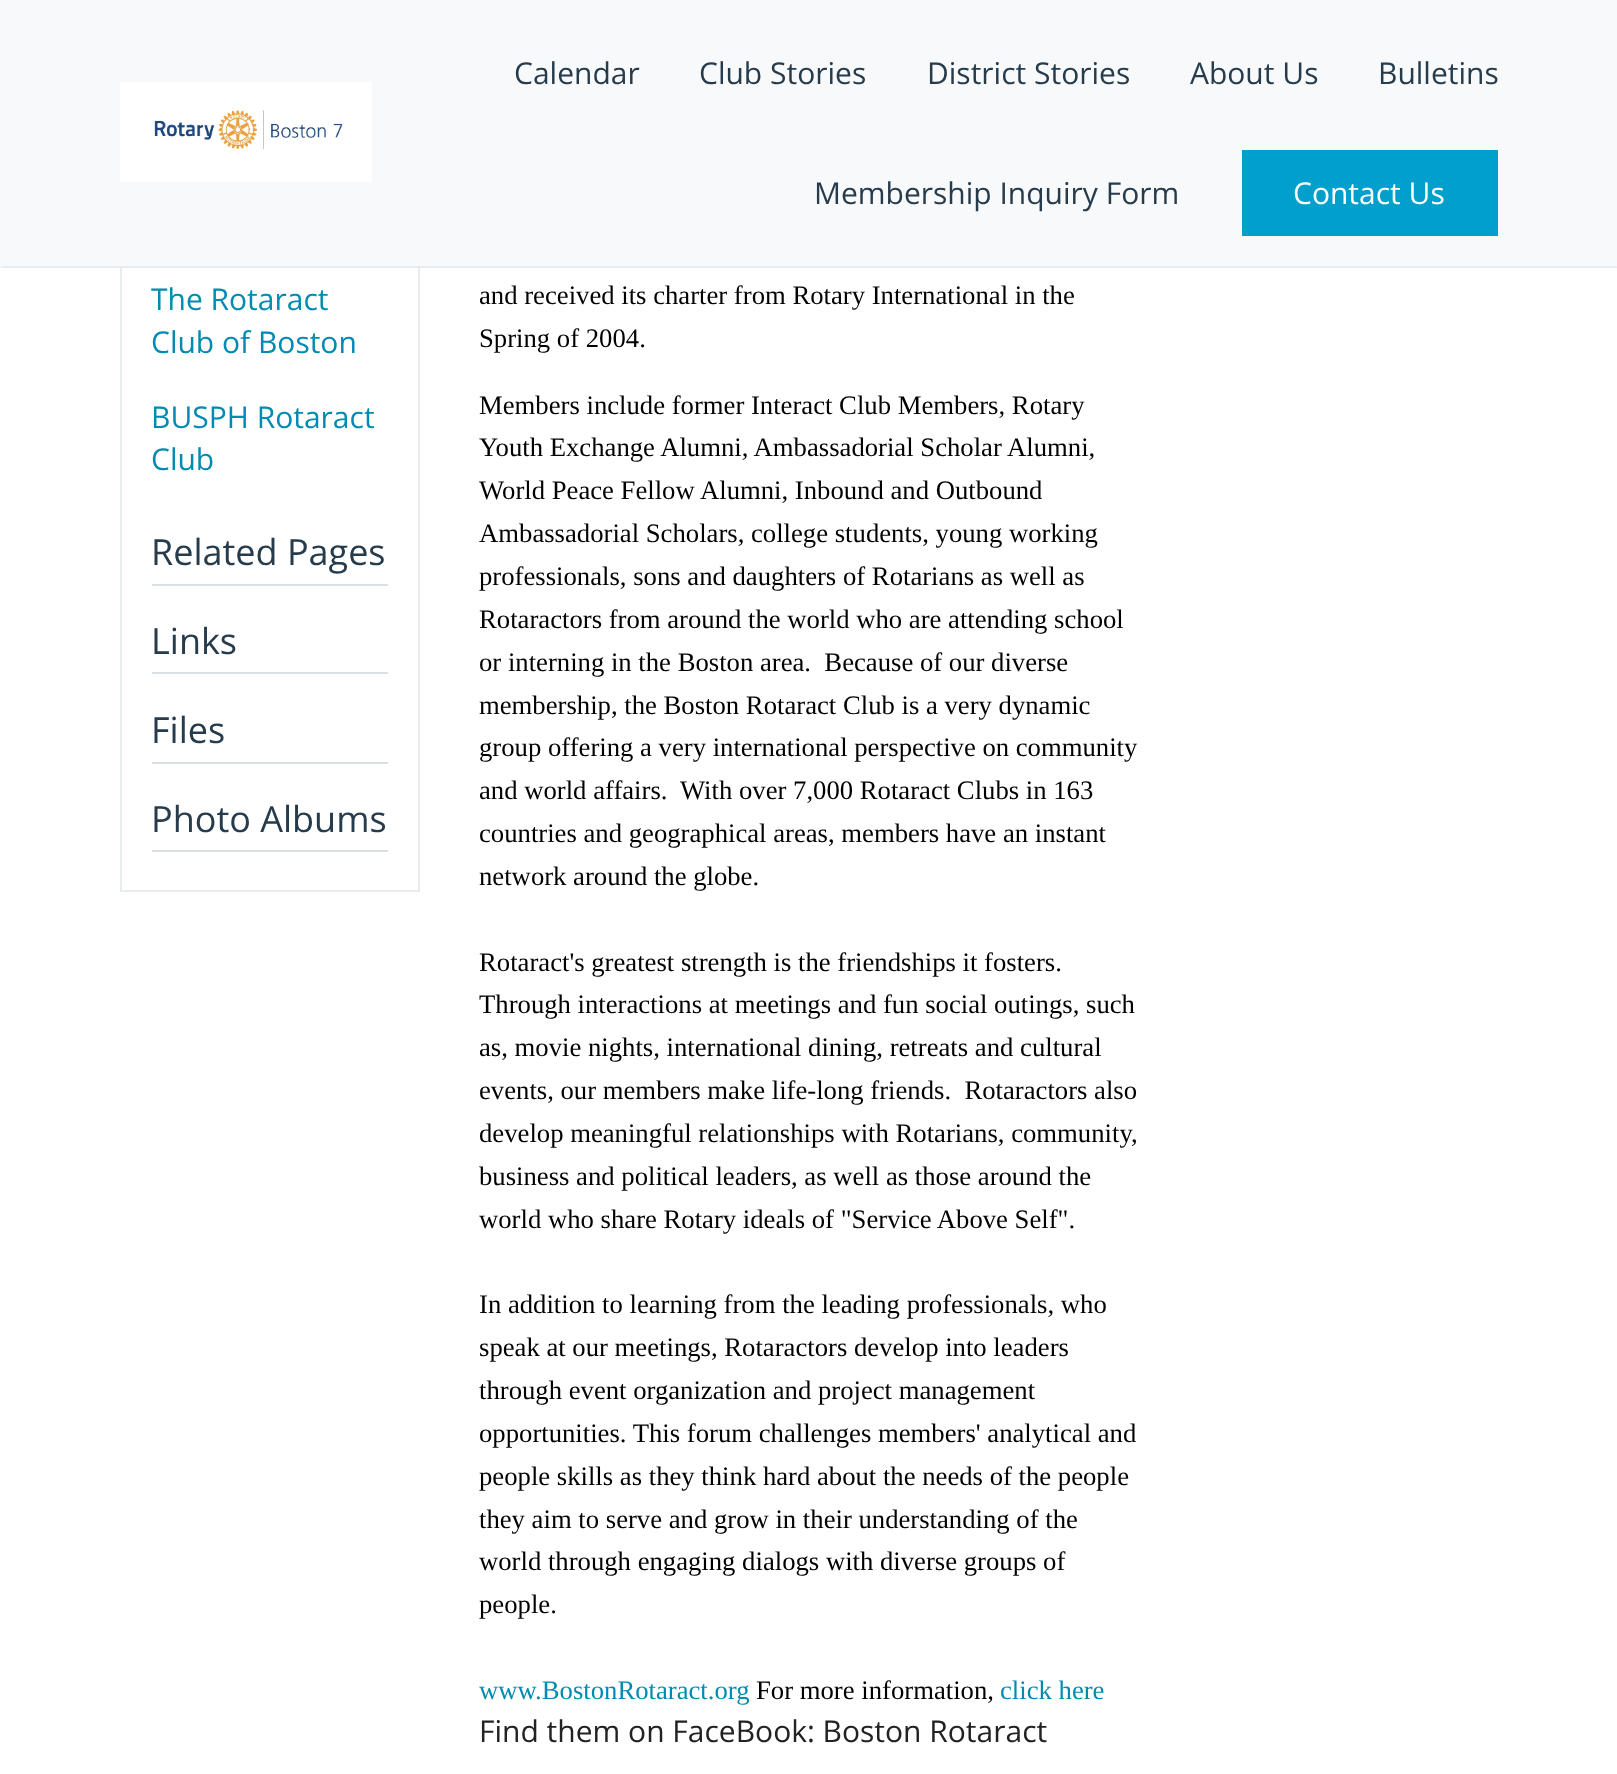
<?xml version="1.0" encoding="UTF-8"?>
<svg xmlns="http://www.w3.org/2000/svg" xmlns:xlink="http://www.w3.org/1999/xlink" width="1617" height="1774">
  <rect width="100%" height="100%" fill="#ffffff" />
  <rect width="1617" height="268" fill="#f8f9fa" />
  <path d="M 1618 268 h -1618 l 2 -2 h 1614 z" fill="#e9ecef" />
  <image x="120" y="82" width="252" height="100" xlink:href="image1.png" />
  <rect x="1242" y="150" width="256" height="86" fill="#019fcb" />
  <rect x="418" y="268" width="2" height="624" fill="#e9ecef" />
  <rect x="120" y="890" width="300" height="2" fill="#e9ecef" />
  <rect x="120" y="268" width="2" height="624" fill="#e9ecef" />
  <rect x="152" y="584" width="236" height="2" fill="#dadfe5" />
  <rect x="152" y="672" width="236" height="2" fill="#dadfe5" />
  <rect x="152" y="762" width="236" height="2" fill="#dadfe5" />
  <rect x="152" y="850" width="236" height="2" fill="#dadfe5" />
  <text x="514" y="84" style="font-family: Open Sans; font-size: 30px; fill: #263b4c">Calendar</text>
  <text x="699" y="84" style="font-family: Open Sans; font-size: 30px; fill: #263b4c">Club Stories</text>
  <text x="927" y="84" style="font-family: Open Sans; font-size: 30px; fill: #263b4c">District Stories</text>
  <text x="1190" y="84" style="font-family: Open Sans; font-size: 30px; fill: #263b4c">About Us</text>
  <text x="1378" y="84" style="font-family: Open Sans; font-size: 30px; fill: #263b4c">Bulletins</text>
  <text x="814" y="204" style="font-family: Open Sans; font-size: 30px; fill: #263b4c">Membership Inquiry Form</text>
  <text x="1293" y="204" style="font-family: Open Sans; font-size: 30px; fill: #ffffff">Contact Us</text>
  <text x="151" y="310" style="font-family: Open Sans; font-size: 30px; fill: #018bb2">The Rotaract</text>
  <text x="151" y="353" style="font-family: Open Sans; font-size: 30px; fill: #018bb2">Club of Boston</text>
  <text x="151" y="428" style="font-family: Open Sans; font-size: 30px; fill: #018bb2">BUSPH Rotaract</text>
  <text x="151" y="470" style="font-family: Open Sans; font-size: 30px; fill: #018bb2">Club</text>
  <text x="151" y="565" style="font-family: Open Sans; font-size: 36px; fill: #263b4c">Related Pages</text>
  <text x="151" y="654" style="font-family: Open Sans; font-size: 36px; fill: #263b4c">Links</text>
  <text x="151" y="743" style="font-family: Open Sans; font-size: 36px; fill: #263b4c">Files</text>
  <text x="151" y="832" style="font-family: Open Sans; font-size: 36px; fill: #263b4c">Photo Albums</text>
  <text x="479" y="304" style="font-family: Liberation Serif; font-size: 26.7px; fill: #000000">and received its charter from Rotary International in the</text>
  <text x="479" y="347" style="font-family: Liberation Serif; font-size: 26.7px; fill: #000000">Spring of 2004.</text>
  <text x="479" y="414" style="font-family: Liberation Serif; font-size: 26.7px; fill: #000000">Members include former Interact Club Members, Rotary</text>
  <text x="479" y="456" style="font-family: Liberation Serif; font-size: 26.7px; fill: #000000">Youth Exchange Alumni, Ambassadorial Scholar Alumni,</text>
  <text x="479" y="499" style="font-family: Liberation Serif; font-size: 26.7px; fill: #000000">World Peace Fellow Alumni, Inbound and Outbound</text>
  <text x="479" y="542" style="font-family: Liberation Serif; font-size: 26.7px; fill: #000000">Ambassadorial Scholars, college students, young working</text>
  <text x="479" y="585" style="font-family: Liberation Serif; font-size: 26.7px; fill: #000000">professionals, sons and daughters of Rotarians as well as</text>
  <text x="479" y="628" style="font-family: Liberation Serif; font-size: 26.7px; fill: #000000">Rotaractors from around the world who are attending school</text>
  <text x="479" y="671" style="font-family: Liberation Serif; font-size: 26.7px; fill: #000000" xml:space="preserve">or interning in the Boston area.  Because of our diverse</text>
  <text x="479" y="714" style="font-family: Liberation Serif; font-size: 26.7px; fill: #000000">membership, the Boston Rotaract Club is a very dynamic</text>
  <text x="479" y="756" style="font-family: Liberation Serif; font-size: 26.7px; fill: #000000">group offering a very international perspective on community</text>
  <text x="479" y="799" style="font-family: Liberation Serif; font-size: 26.7px; fill: #000000">and world affairs.</text>
  <text x="680" y="799" style="font-family: Liberation Serif; font-size: 26.7px; fill: #000000">With over 7,000 Rotaract Clubs in 163</text>
  <text x="479" y="842" style="font-family: Liberation Serif; font-size: 26.7px; fill: #000000">countries and geographical areas, members have an instant</text>
  <text x="479" y="885" style="font-family: Liberation Serif; font-size: 26.7px; fill: #000000">network around the globe.</text>
  <text x="479" y="971" style="font-family: Liberation Serif; font-size: 26.7px; fill: #000000">Rotaract's greatest strength is the friendships it fosters.</text>
  <text x="479" y="1013" style="font-family: Liberation Serif; font-size: 26.7px; fill: #000000">Through interactions at meetings and fun social outings, such</text>
  <text x="479" y="1056" style="font-family: Liberation Serif; font-size: 26.7px; fill: #000000">as, movie nights, international dining, retreats and cultural</text>
  <text x="479" y="1099" style="font-family: Liberation Serif; font-size: 26.7px; fill: #000000" xml:space="preserve">events, our members make life-long friends.  Rotaractors also</text>
  <text x="479" y="1142" style="font-family: Liberation Serif; font-size: 26.7px; fill: #000000">develop meaningful relationships with Rotarians, community,</text>
  <text x="479" y="1185" style="font-family: Liberation Serif; font-size: 26.7px; fill: #000000">business and political leaders, as well as those around the</text>
  <text x="479" y="1228" style="font-family: Liberation Serif; font-size: 26.7px; fill: #000000">world who share Rotary ideals of "Service Above Self".</text>
  <text x="479" y="1313" style="font-family: Liberation Serif; font-size: 26.7px; fill: #000000">In addition to learning from the leading professionals, who</text>
  <text x="479" y="1356" style="font-family: Liberation Serif; font-size: 26.7px; fill: #000000">speak at our meetings, Rotaractors develop into leaders</text>
  <text x="479" y="1399" style="font-family: Liberation Serif; font-size: 26.7px; fill: #000000">through event organization and project management</text>
  <text x="479" y="1442" style="font-family: Liberation Serif; font-size: 26.7px; fill: #000000">opportunities. This forum challenges members' analytical and</text>
  <text x="479" y="1485" style="font-family: Liberation Serif; font-size: 26.7px; fill: #000000">people skills as they think hard about the needs of the people</text>
  <text x="479" y="1528" style="font-family: Liberation Serif; font-size: 26.7px; fill: #000000">they aim to serve and grow in their understanding of the</text>
  <text x="479" y="1570" style="font-family: Liberation Serif; font-size: 26.7px; fill: #000000">world through engaging dialogs with diverse groups of</text>
  <text x="479" y="1613" style="font-family: Liberation Serif; font-size: 26.7px; fill: #000000">people.</text>
  <text x="479" y="1699" style="font-family: Liberation Serif; font-size: 26.7px; fill: #018bb2">www.BostonRotaract.org</text>
  <text x="756" y="1699" style="font-family: Liberation Serif; font-size: 26.7px; fill: #000000">For more information,</text>
  <text x="1000" y="1699" style="font-family: Liberation Serif; font-size: 26.7px; fill: #018bb2">click here</text>
  <text x="479" y="1742" style="font-family: Open Sans; font-size: 30px; fill: #222222">Find them on FaceBook: Boston Rotaract</text>
</svg>
